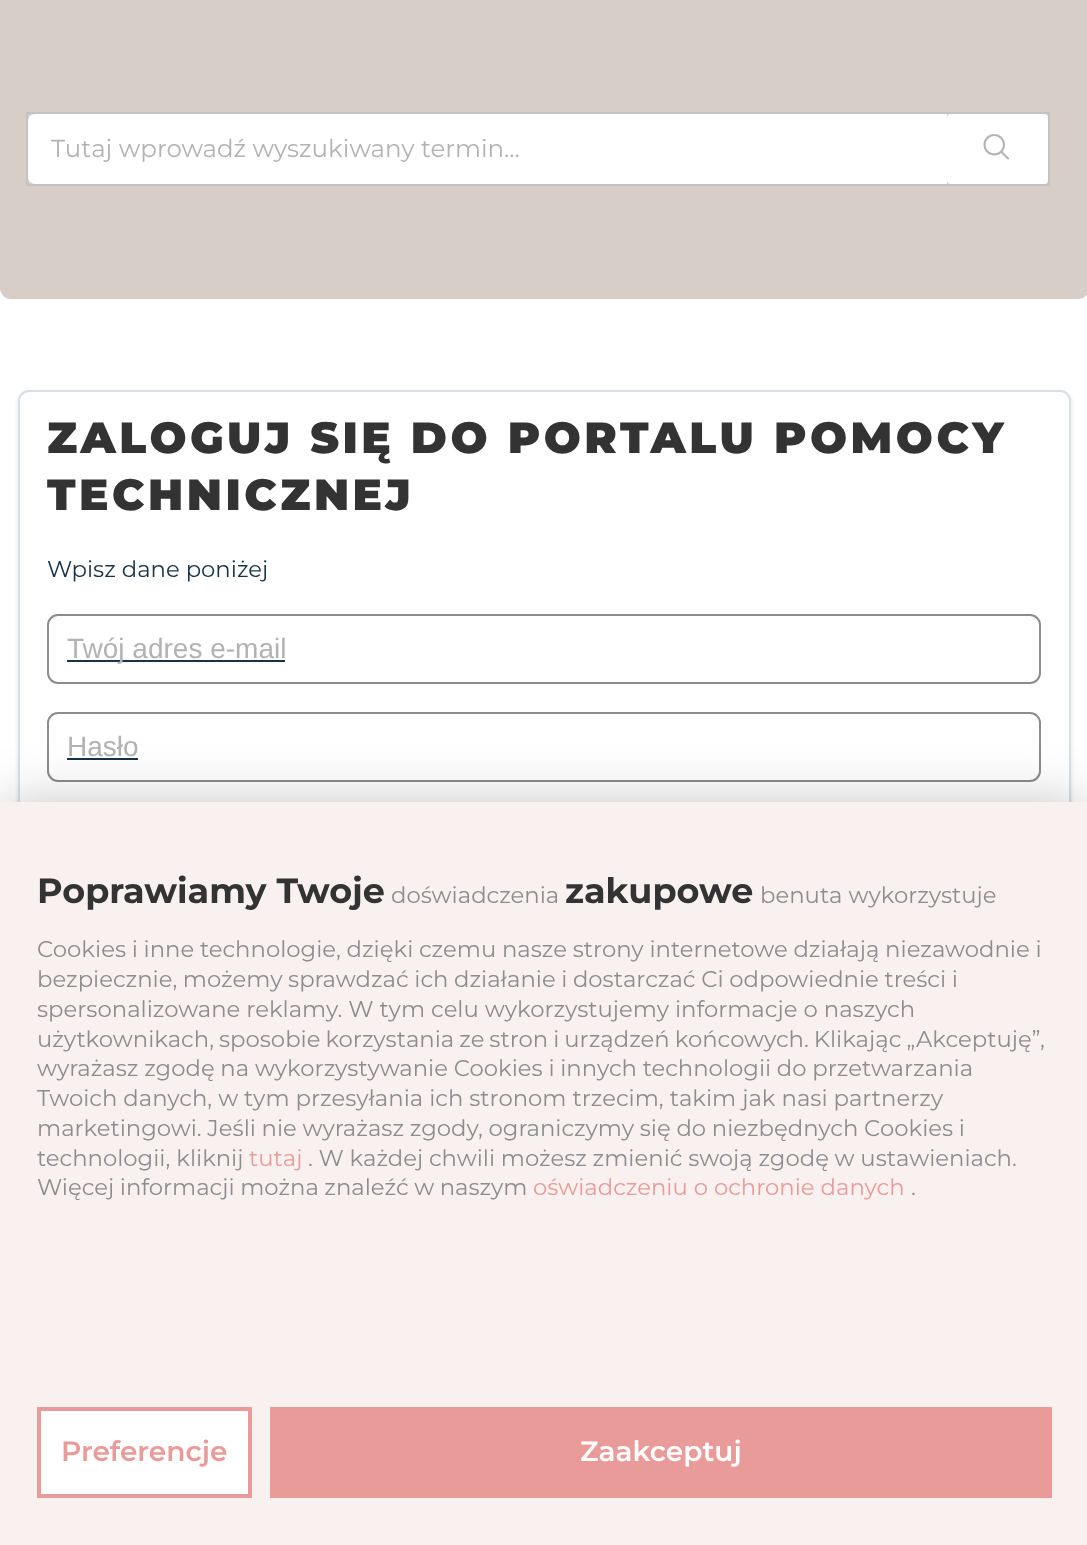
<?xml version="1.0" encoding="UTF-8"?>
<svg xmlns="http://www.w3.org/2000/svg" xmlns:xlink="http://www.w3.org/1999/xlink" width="1087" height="1545">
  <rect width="100%" height="100%" fill="#ffffff" />
  <rect y="-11" width="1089" height="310" rx="11" fill="#d6cec7" />
  <rect x="27" y="113" width="1022" height="72" fill="none" stroke="#c3c3c3" stroke-width="2" />
  <path d="M 35 114 h 912 v 70 h -912 c -4 0 -7 -3 -7 -7 v -56 c 0 -4 3 -7 7 -7 z" fill="#ffffff" />
  <rect x="947" y="114" width="101" height="70" rx="4" fill="#ffffff" />
  <image x="983" y="134" width="27" height="26" xlink:href="image1.png" />
  <rect x="18" y="392" width="1053" height="949" rx="11" fill="#3f3f44" fill-opacity="0.15" filter="blur(2px)" />
  <rect x="19" y="391" width="1051" height="947" rx="10" fill="#ffffff" stroke="#dadfe3" stroke-width="2" />
  <rect x="48" y="615" width="992" height="68" rx="10" fill="none" stroke="#8c8c8c" stroke-width="2" />
  <rect x="67" y="660" width="218" height="2" fill="#183247" />
  <rect x="48" y="713" width="992" height="68" rx="10" fill="none" stroke="#8c8c8c" stroke-width="2" />
  <rect x="67" y="758" width="71" height="2" fill="#183247" />
  <rect y="812" width="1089" height="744" fill="#000000" fill-opacity="0.3" filter="blur(31.5px)" />
  <rect y="802" width="1087" height="743" fill="#f9f1f0" />
  <rect x="39" y="1409" width="211" height="87" fill="#ffffff" stroke="#e89b99" stroke-width="4" />
  <rect x="270" y="1407" width="782" height="91" fill="#e89b99" />
  <text x="51" y="157" style="font-family: Montserrat; font-size: 24.5px; fill: #b2b2b2">Tutaj wprowadź wyszukiwany termin...</text>
  <text x="47" y="453" style="font-family: Montserrat; font-size: 43.75px; font-weight: 900; letter-spacing: 3.5px; fill: #333333">ZALOGUJ SIĘ DO PORTALU POMOCY</text>
  <text x="47" y="510" style="font-family: Montserrat; font-size: 43.75px; font-weight: 900; letter-spacing: 3.5px; fill: #333333">TECHNICZNEJ</text>
  <text x="47" y="577" style="font-family: Montserrat; font-size: 22.75px; fill: #183247">Wpisz dane poniżej</text>
  <text x="67" y="658" style="font-family: Liberation Sans; font-size: 28px; fill: #b2b2b2">Twój adres e-mail</text>
  <text x="67" y="756" style="font-family: Liberation Sans; font-size: 28px; fill: #b2b2b2">Hasło</text>
  <text x="37" y="903" style="font-family: Montserrat; font-size: 35px; font-weight: bold; fill: #333333">Poprawiamy Twoje</text>
  <text x="391" y="903" style="font-family: Montserrat; font-size: 22.75px; fill: #8d8d8d">doświadczenia</text>
  <text x="565" y="903" style="font-family: Montserrat; font-size: 35px; font-weight: bold; fill: #333333">zakupowe</text>
  <text x="760" y="903" style="font-family: Montserrat; font-size: 22.75px; fill: #8d8d8d">benuta wykorzystuje</text>
  <text x="37" y="957" word-spacing="-0.25" style="font-family: Montserrat; font-size: 22.75px; fill: #8d8d8d">Cookies i inne technologie, dzięki czemu nasze strony internetowe działają niezawodnie i</text>
  <text x="37" y="987" word-spacing="-0.4" style="font-family: Montserrat; font-size: 22.75px; fill: #8d8d8d">bezpiecznie, możemy sprawdzać ich działanie i dostarczać Ci odpowiednie treści i</text>
  <text x="37" y="1017" style="font-family: Montserrat; font-size: 22.75px; fill: #8d8d8d">spersonalizowane reklamy. W tym celu wykorzystujemy informacje o naszych</text>
  <text x="37" y="1047" word-spacing="-1" style="font-family: Montserrat; font-size: 22.75px; fill: #8d8d8d">użytkownikach, sposobie korzystania ze stron i urządzeń końcowych. Klikając „Akceptuję”,</text>
  <text x="37" y="1076" word-spacing="-0.25" style="font-family: Montserrat; font-size: 22.75px; fill: #8d8d8d">wyrażasz zgodę na wykorzystywanie Cookies i innych technologii do przetwarzania</text>
  <text x="37" y="1106" style="font-family: Montserrat; font-size: 22.75px; fill: #8d8d8d">Twoich danych, w tym przesyłania ich stronom trzecim, takim jak nasi partnerzy</text>
  <text x="37" y="1136" word-spacing="-0.25" style="font-family: Montserrat; font-size: 22.75px; fill: #8d8d8d">marketingowi. Jeśli nie wyrażasz zgody, ograniczymy się do niezbędnych Cookies i</text>
  <text x="37" y="1166" style="font-family: Montserrat; font-size: 22.75px; fill: #8d8d8d">technologii, kliknij</text>
  <text x="249" y="1166" style="font-family: Montserrat; font-size: 22.75px; fill: #e89b99">tutaj</text>
  <text x="308" y="1166" word-spacing="-0.25" style="font-family: Montserrat; font-size: 22.75px; fill: #8d8d8d">. W każdej chwili możesz zmienić swoją zgodę w ustawieniach.</text>
  <text x="37" y="1195" word-spacing="-0.5" style="font-family: Montserrat; font-size: 22.75px; fill: #8d8d8d">Więcej informacji można znaleźć w naszym</text>
  <text x="533" y="1195" style="font-family: Montserrat; font-size: 22.75px; fill: #e89b99">oświadczeniu o ochronie danych</text>
  <text x="911" y="1195" style="font-family: Montserrat; font-size: 22.75px; fill: #8d8d8d">.</text>
  <text x="61" y="1461" style="font-family: Montserrat; font-size: 28px; font-weight: 600; fill: #e89b99">Preferencje</text>
  <text x="580" y="1461" style="font-family: Montserrat; font-size: 28px; font-weight: 600; fill: #ffffff">Zaakceptuj</text>
</svg>
